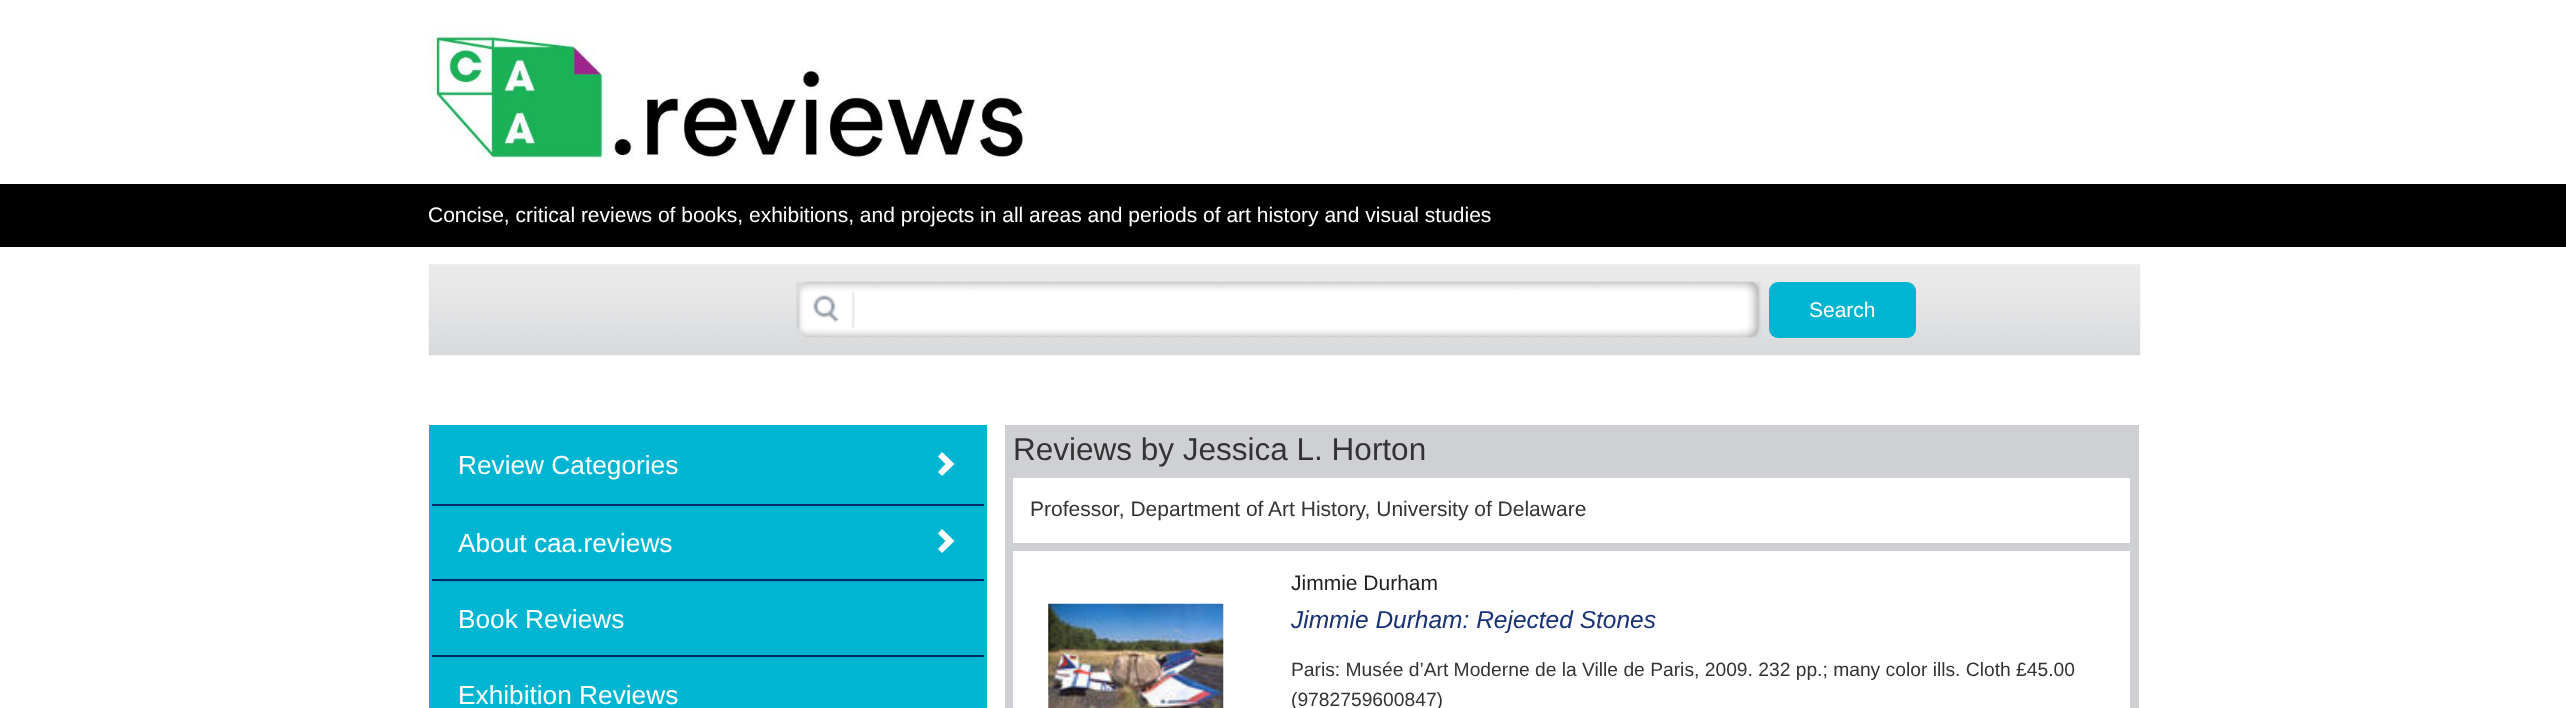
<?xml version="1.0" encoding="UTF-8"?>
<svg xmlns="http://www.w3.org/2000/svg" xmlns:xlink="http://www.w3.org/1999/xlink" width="2566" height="708">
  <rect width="100%" height="100%" fill="#ffffff" />
  <image x="429" y="26" width="596" height="133" xlink:href="image1.png" />
  <rect y="184" width="2566" height="63" fill="#000000" />
  <image x="428" y="264" width="1713" height="92" xlink:href="image2.png" />
  <image x="796" y="281" width="965" height="57" xlink:href="image3.png" />
  <image x="796" y="327" width="964" height="11" xlink:href="image4.png" />
  <rect x="856" y="291" width="884" height="38" fill="#ffffff" />
  <rect x="1769" y="282" width="147" height="56" rx="9" fill="#00b5d1" />
  <rect x="429" y="425" width="558" height="283" fill="#00b5d1" />
  <path d="M 954.5 464 l -12.5 12 l -4 -4 l 7.5 -8 l -7.5 -7.5 l 4 -4.5 z" fill="#ffffff" />
  <rect x="432" y="506" width="552" height="77" rx="7" fill="#000000" fill-opacity="0.05" filter="blur(1px)" />
  <rect x="432" y="506" width="552" height="73" fill="#00b5d1" />
  <rect x="432" y="504" width="552" height="2" fill="#002966" />
  <rect x="432" y="579" width="552" height="2" fill="#002966" />
  <path d="M 954.5 541 l -12.5 12 l -4 -4 l 7.5 -8 l -7.5 -7.5 l 4 -4.5 z" fill="#ffffff" />
  <rect x="432" y="585" width="552" height="73" rx="7" fill="#000000" fill-opacity="0.05" filter="blur(1px)" />
  <rect x="432" y="655" width="552" height="2" fill="#002966" />
  <rect x="432" y="583" width="552" height="72" fill="#00b5d1" />
  <rect x="432" y="658" width="552" height="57" rx="7" fill="#00b5d1" />
  <rect x="1005" y="425" width="1134" height="283" fill="#cfd0d4" />
  <rect x="1013" y="478" width="1117" height="65" fill="#ffffff" />
  <rect x="1013" y="551" width="1117" height="157" fill="#ffffff" />
  <image x="1048" y="603" width="176" height="105" xlink:href="image5.png" />
  <text x="428" y="222" style="font-family: Liberation Sans; font-size: 21px; fill: #ffffff">Concise, critical reviews of books, exhibitions, and projects in all areas and periods of art history and visual studies</text>
  <text x="1809" y="317" style="font-family: Liberation Sans; font-size: 21px; fill: #ffffff">Search</text>
  <text x="458" y="474" style="font-family: Liberation Sans; font-size: 26.25px; fill: #ffffff">Review Categories</text>
  <text x="458" y="552" style="font-family: Liberation Sans; font-size: 26.25px; fill: #ffffff">About caa.reviews</text>
  <text x="458" y="628" style="font-family: Liberation Sans; font-size: 26.25px; fill: #ffffff">Book Reviews</text>
  <text x="458" y="704" style="font-family: Liberation Sans; font-size: 26.25px; fill: #ffffff">Exhibition Reviews</text>
  <text x="1013" y="460" style="font-family: Liberation Sans; font-size: 31.5px; fill: #333333">Reviews by Jessica L. Horton</text>
  <text x="1030" y="516" style="font-family: Liberation Sans; font-size: 21px; fill: #333333">Professor, Department of Art History, University of Delaware</text>
  <text x="1291" y="590" style="font-family: Liberation Sans; font-size: 21px; fill: #212121">Jimmie Durham</text>
  <text x="1291" y="628" style="font-family: Liberation Sans; font-size: 24.5px; font-style: italic; fill: #173275">Jimmie Durham: Rejected Stones</text>
  <text x="1291" y="676" style="font-family: Liberation Sans; font-size: 19.25px; fill: #333333">Paris: Musée d’Art Moderne de la Ville de Paris, 2009. 232 pp.; many color ills. Cloth £45.00</text>
  <text x="1291" y="706" style="font-family: Liberation Sans; font-size: 19.25px; fill: #333333">(9782759600847)</text>
</svg>
